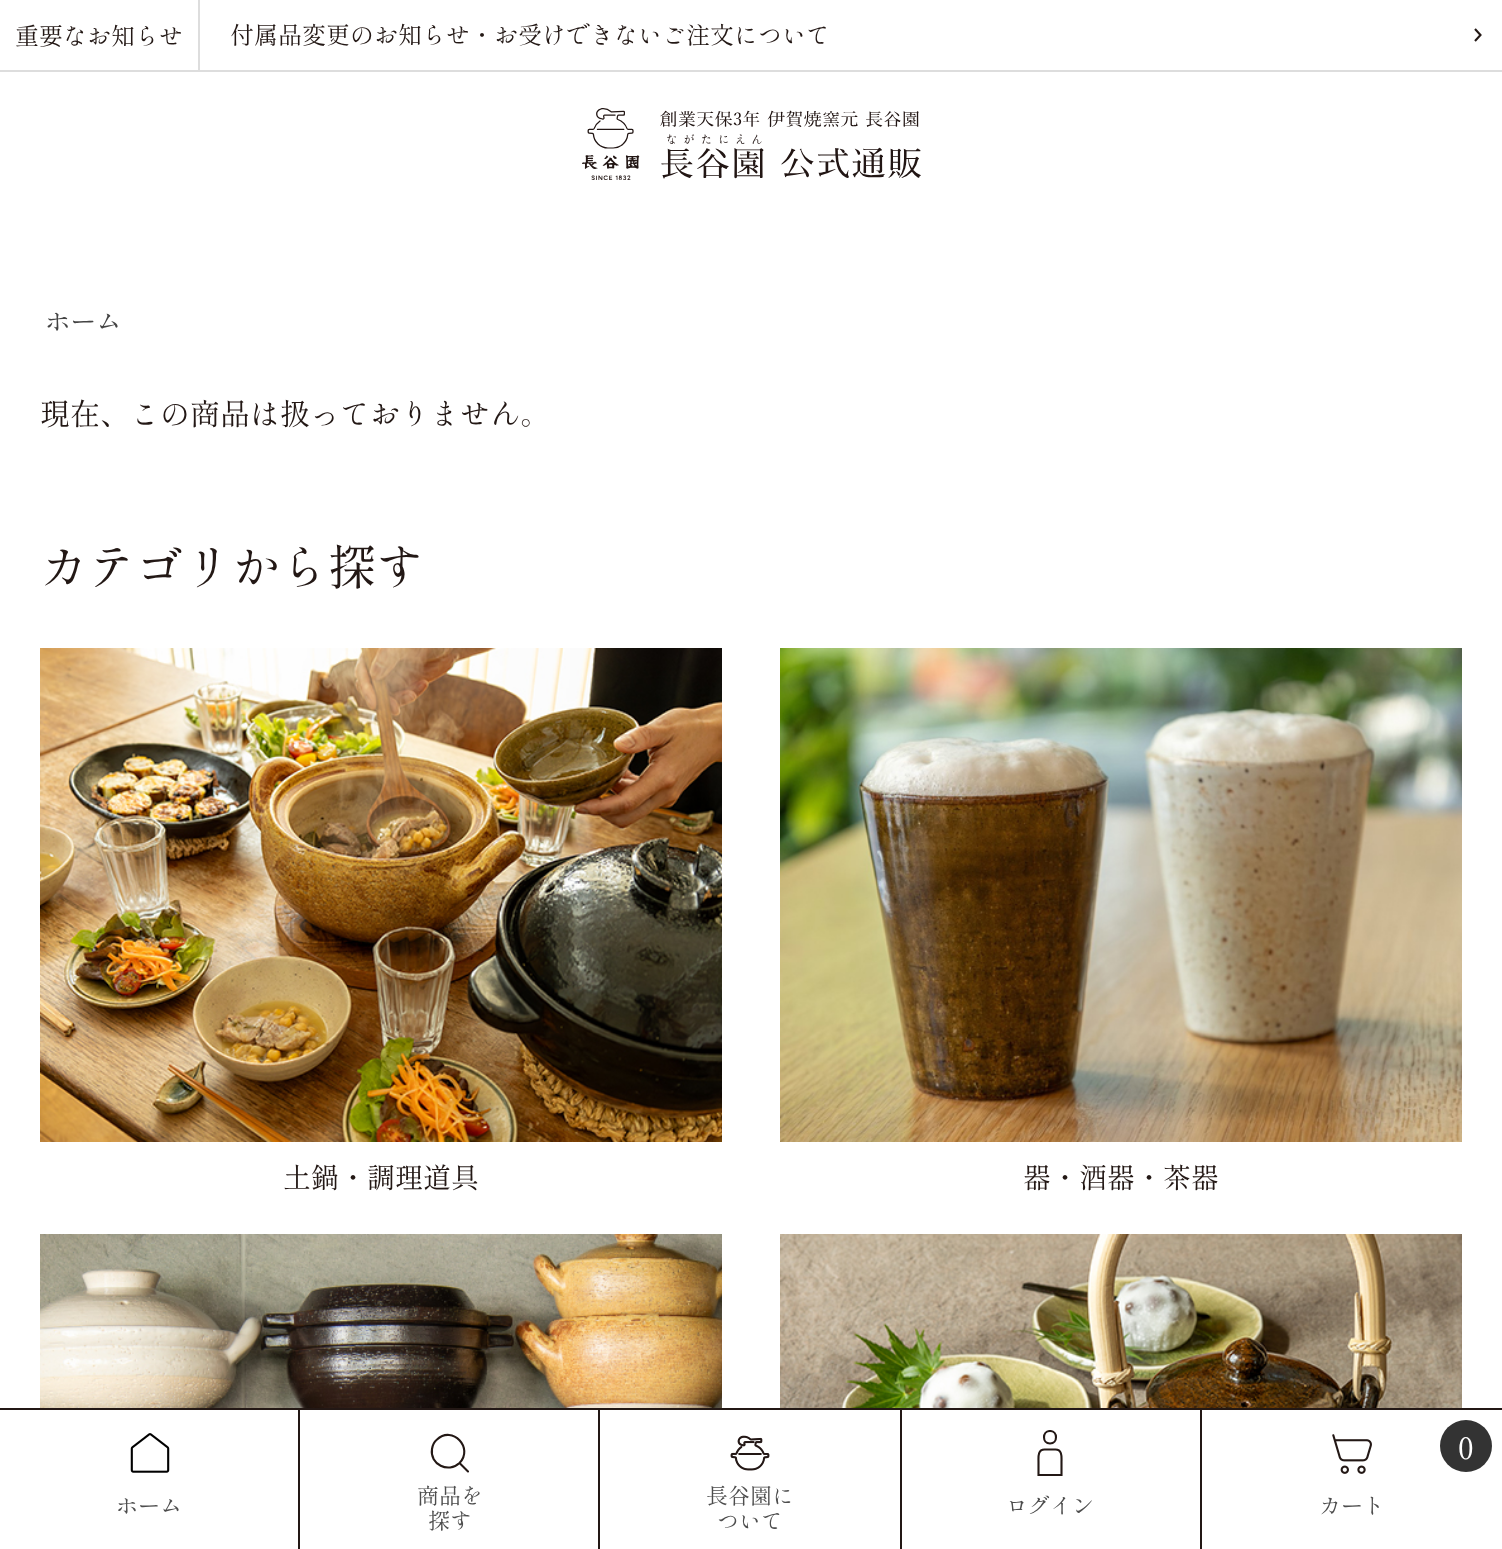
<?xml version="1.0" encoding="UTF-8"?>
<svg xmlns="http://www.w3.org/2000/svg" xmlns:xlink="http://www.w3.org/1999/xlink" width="1502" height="1549">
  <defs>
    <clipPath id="clip1"><rect x="1030" y="1430" width="40" height="46" /></clipPath>
  </defs>
  <rect width="100%" height="100%" fill="#ffffff" />
  <rect y="70" width="1502" height="2" fill="#dddddd" />
  <rect x="198" width="2" height="70" fill="#dddddd" />
  <path d="M 1475 41 l 5.5 -6 l -5.5 -6" fill="none" stroke="#231815" stroke-width="2.1" />
  <image x="582" y="108" width="339" height="72" xlink:href="image1.png" />
  <image x="40" y="648" width="682" height="494" xlink:href="image2.png" />
  <image x="780" y="648" width="682" height="494" xlink:href="image3.png" />
  <image x="40" y="1234" width="682" height="174" xlink:href="image4.png" />
  <image x="780" y="1234" width="682" height="174" xlink:href="image5.png" />
  <rect y="1408" width="1502" height="2" fill="#231815" />
  <rect x="298" y="1410" width="2" height="139" fill="#231815" />
  <image x="130" y="1433" width="40" height="40" xlink:href="image6.png" />
  <rect x="598" y="1410" width="2" height="139" fill="#231815" />
  <path d="M 468 1471.5 l -8.5 -8.5 m 0 0 c 14.5 -15 -7 -38 -22.5 -23.5 c -3 2.5 -4.5 6 -5 9.5 c -2.5 15.5 16.5 24.5 27.5 14 z" fill="none" stroke="#231815" stroke-width="2.1" stroke-linecap="round" stroke-linejoin="round" />
  <rect x="900" y="1410" width="2" height="139" fill="#231815" />
  <image x="730" y="1435" width="40" height="36" xlink:href="image7.png" />
  <rect x="1200" y="1410" width="2" height="139" fill="#231815" />
  <g clip-path="url(#clip1)">
    <path d="M 1050 1431 c 8 0 8 12.5 0 12.5 c -8 0 -8 -12.5 0 -12.5 z m 5.5 18.5 c 7 0 6 8 6 12.5 v 13 h -23 v -13 c 0 -4.5 -1 -12.5 6 -12.5 z" fill="none" stroke="#231815" stroke-width="2.1" />
  </g>
  <circle cx="1466" cy="1446" r="26" fill="#333333" />
  <image x="1332" y="1434" width="40" height="40" xlink:href="image8.png" />
  <text x="15" y="45" style="font-family: Shippori Mincho; font-size: 24px; fill: #231815">重要なお知らせ</text>
  <text x="230" y="44" style="font-family: Shippori Mincho; font-size: 24px; fill: #231815">付属品変更のお知らせ・お受けできないご注文について</text>
  <text x="45" y="331" style="font-family: Shippori Mincho; font-size: 25.5px; fill: #444444">ホーム</text>
  <text x="40" y="425" style="font-family: Shippori Mincho; font-size: 30px; fill: #231815">現在、この商品は扱っておりません。</text>
  <text x="40" y="585" style="font-family: Shippori Mincho; font-size: 48px; fill: #231815">カテゴリから探す</text>
  <text x="283" y="1188" style="font-family: Shippori Mincho; font-size: 28px; fill: #231815">土鍋・調理道具</text>
  <text x="1023" y="1188" style="font-family: Shippori Mincho; font-size: 28px; fill: #231815">器・酒器・茶器</text>
  <text x="116" y="1514" style="font-family: Shippori Mincho; font-size: 22px; fill: #4d4d4d">ホーム</text>
  <text x="417" y="1504" style="font-family: Shippori Mincho; font-size: 22px; fill: #4d4d4d">商品を</text>
  <text x="428" y="1529" style="font-family: Shippori Mincho; font-size: 22px; fill: #4d4d4d">探す</text>
  <text x="706" y="1504" style="font-family: Shippori Mincho; font-size: 22px; fill: #4d4d4d">長谷園に</text>
  <text x="717" y="1529" style="font-family: Shippori Mincho; font-size: 22px; fill: #4d4d4d">ついて</text>
  <text x="1006" y="1514" style="font-family: Shippori Mincho; font-size: 22px; fill: #4d4d4d">ログイン</text>
  <text x="1458" y="1459" style="font-family: Shippori Mincho; font-size: 30px; fill: #ffffff">0</text>
  <text x="1319" y="1514" style="font-family: Shippori Mincho; font-size: 22px; fill: #4d4d4d">カート</text>
</svg>
